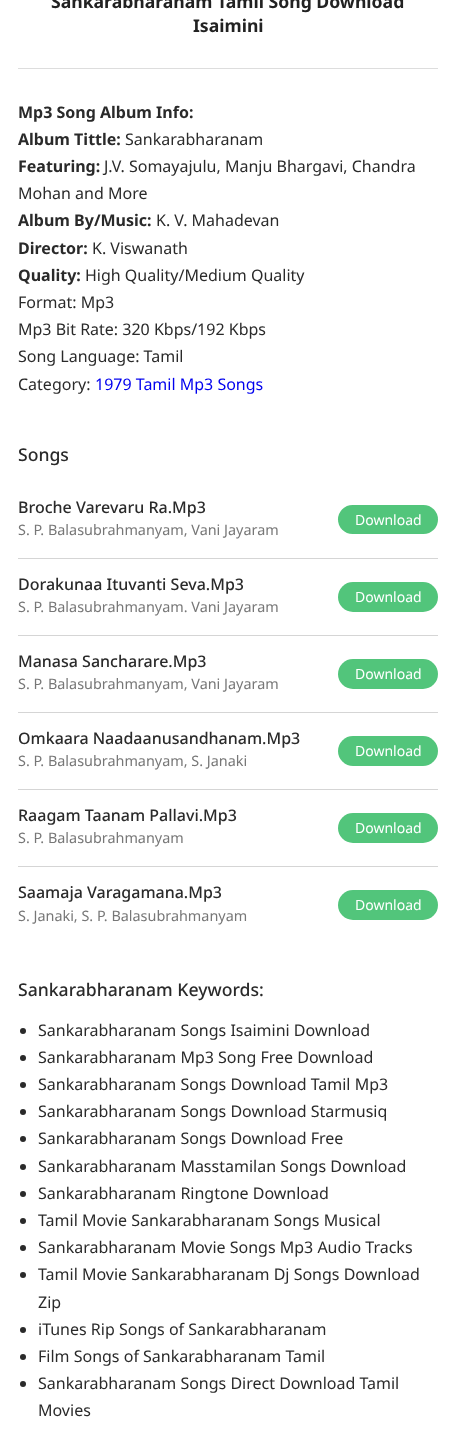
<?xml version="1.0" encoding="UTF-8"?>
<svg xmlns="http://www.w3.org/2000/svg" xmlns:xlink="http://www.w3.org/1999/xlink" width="456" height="1431">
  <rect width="100%" height="100%" fill="#ffffff" />
  <rect x="18" y="68" width="420" height="1" fill="#dddddd" />
  <rect x="18" y="558" width="420" height="1" fill="#d5d5d5" />
  <rect x="338" y="505" width="100" height="29" rx="14.5" fill="#52c57b" />
  <rect x="18" y="635" width="420" height="1" fill="#d5d5d5" />
  <rect x="338" y="582" width="100" height="30" rx="15" fill="#52c57b" />
  <rect x="18" y="712" width="420" height="1" fill="#d5d5d5" />
  <rect x="338" y="659" width="100" height="30" rx="15" fill="#52c57b" />
  <rect x="18" y="789" width="420" height="1" fill="#d5d5d5" />
  <rect x="338" y="736" width="100" height="30" rx="15" fill="#52c57b" />
  <rect x="18" y="866" width="420" height="1" fill="#d5d5d5" />
  <rect x="338" y="813" width="100" height="30" rx="15" fill="#52c57b" />
  <rect x="338" y="890" width="100" height="30" rx="15" fill="#52c57b" />
  <circle cx="23" cy="1031" r="3" fill="#2a2a2a" />
  <circle cx="23" cy="1058" r="3" fill="#2a2a2a" />
  <circle cx="23" cy="1085" r="3" fill="#2a2a2a" />
  <circle cx="23" cy="1112" r="3" fill="#2a2a2a" />
  <circle cx="23" cy="1139" r="3" fill="#2a2a2a" />
  <circle cx="23" cy="1167" r="3" fill="#2a2a2a" />
  <circle cx="23" cy="1194" r="3" fill="#2a2a2a" />
  <circle cx="23" cy="1221" r="3" fill="#2a2a2a" />
  <circle cx="23" cy="1248" r="3" fill="#2a2a2a" />
  <circle cx="23" cy="1275" r="3" fill="#2a2a2a" />
  <circle cx="23" cy="1330" r="3" fill="#2a2a2a" />
  <circle cx="23" cy="1357" r="3" fill="#2a2a2a" />
  <circle cx="23" cy="1384" r="3" fill="#2a2a2a" />
  <text x="51" y="8" style="font-family: Noto Sans; font-size: 17.6px; font-weight: bold; fill: #222222">Sankarabharanam Tamil Song Download</text>
  <text x="193" y="32" style="font-family: Noto Sans; font-size: 17.6px; font-weight: bold; fill: #222222">Isaimini</text>
  <text x="18" y="118" style="font-family: Noto Sans; font-size: 16px; font-weight: bold; fill: #2a2a2a">Mp3 Song Album Info:</text>
  <text x="18" y="145" style="font-family: Noto Sans; font-size: 16px; font-weight: bold; fill: #2a2a2a">Album Tittle:</text>
  <text x="125" y="145" style="font-family: Noto Sans; font-size: 16px; fill: #2a2a2a">Sankarabharanam</text>
  <text x="18" y="172" style="font-family: Noto Sans; font-size: 16px; font-weight: bold; fill: #2a2a2a">Featuring:</text>
  <text x="104" y="172" style="font-family: Noto Sans; font-size: 16px; fill: #2a2a2a">J.V. Somayajulu, Manju Bhargavi, Chandra</text>
  <text x="18" y="199" style="font-family: Noto Sans; font-size: 16px; fill: #2a2a2a">Mohan and More</text>
  <text x="18" y="226" style="font-family: Noto Sans; font-size: 16px; font-weight: bold; fill: #2a2a2a">Album By/Music:</text>
  <text x="156" y="226" style="font-family: Noto Sans; font-size: 16px; fill: #2a2a2a">K. V. Mahadevan</text>
  <text x="18" y="254" style="font-family: Noto Sans; font-size: 16px; font-weight: bold; fill: #2a2a2a">Director:</text>
  <text x="92" y="254" style="font-family: Noto Sans; font-size: 16px; fill: #2a2a2a">K. Viswanath</text>
  <text x="18" y="281" style="font-family: Noto Sans; font-size: 16px; font-weight: bold; fill: #2a2a2a">Quality:</text>
  <text x="85" y="281" style="font-family: Noto Sans; font-size: 16px; fill: #2a2a2a">High Quality/Medium Quality</text>
  <text x="18" y="308" style="font-family: Noto Sans; font-size: 16px; fill: #2a2a2a">Format: Mp3</text>
  <text x="18" y="335" style="font-family: Noto Sans; font-size: 16px; fill: #2a2a2a">Mp3 Bit Rate: 320 Kbps/192 Kbps</text>
  <text x="18" y="362" style="font-family: Noto Sans; font-size: 16px; fill: #2a2a2a">Song Language: Tamil</text>
  <text x="18" y="390" style="font-family: Noto Sans; font-size: 16px; fill: #2a2a2a">Category:</text>
  <text x="95" y="390" style="font-family: Noto Sans; font-size: 16px; fill: #0000ee">1979 Tamil Mp3 Songs</text>
  <text x="18" y="461" style="font-family: Noto Sans; font-size: 17.6px; font-weight: 500; fill: #2a2a2a">Songs</text>
  <text x="18" y="513" style="font-family: Noto Sans; font-size: 16px; font-weight: 500; fill: #2a2a2a">Broche Varevaru Ra.Mp3</text>
  <text x="18" y="535" style="font-family: Noto Sans; font-size: 14.4px; fill: #777777">S. P. Balasubrahmanyam, Vani Jayaram</text>
  <text x="355" y="525" style="font-family: Noto Sans; font-size: 14px; fill: #ffffff">Download</text>
  <text x="18" y="590" style="font-family: Noto Sans; font-size: 16px; font-weight: 500; fill: #2a2a2a">Dorakunaa Ituvanti Seva.Mp3</text>
  <text x="18" y="612" style="font-family: Noto Sans; font-size: 14.4px; fill: #777777">S. P. Balasubrahmanyam. Vani Jayaram</text>
  <text x="355" y="602" style="font-family: Noto Sans; font-size: 14px; fill: #ffffff">Download</text>
  <text x="18" y="667" style="font-family: Noto Sans; font-size: 16px; font-weight: 500; fill: #2a2a2a">Manasa Sancharare.Mp3</text>
  <text x="18" y="689" style="font-family: Noto Sans; font-size: 14.4px; fill: #777777">S. P. Balasubrahmanyam, Vani Jayaram</text>
  <text x="355" y="679" style="font-family: Noto Sans; font-size: 14px; fill: #ffffff">Download</text>
  <text x="18" y="744" style="font-family: Noto Sans; font-size: 16px; font-weight: 500; fill: #2a2a2a">Omkaara Naadaanusandhanam.Mp3</text>
  <text x="18" y="766" style="font-family: Noto Sans; font-size: 14.4px; fill: #777777">S. P. Balasubrahmanyam, S. Janaki</text>
  <text x="355" y="756" style="font-family: Noto Sans; font-size: 14px; fill: #ffffff">Download</text>
  <text x="18" y="821" style="font-family: Noto Sans; font-size: 16px; font-weight: 500; fill: #2a2a2a">Raagam Taanam Pallavi.Mp3</text>
  <text x="18" y="843" style="font-family: Noto Sans; font-size: 14.4px; fill: #777777">S. P. Balasubrahmanyam</text>
  <text x="355" y="833" style="font-family: Noto Sans; font-size: 14px; fill: #ffffff">Download</text>
  <text x="18" y="898" style="font-family: Noto Sans; font-size: 16px; font-weight: 500; fill: #2a2a2a">Saamaja Varagamana.Mp3</text>
  <text x="18" y="921" style="font-family: Noto Sans; font-size: 14.4px; fill: #777777">S. Janaki, S. P. Balasubrahmanyam</text>
  <text x="355" y="910" style="font-family: Noto Sans; font-size: 14px; fill: #ffffff">Download</text>
  <text x="18" y="996" style="font-family: Noto Sans; font-size: 17.6px; font-weight: 500; fill: #2a2a2a">Sankarabharanam Keywords:</text>
  <text x="38" y="1036" style="font-family: Noto Sans; font-size: 16px; fill: #2a2a2a">Sankarabharanam Songs Isaimini Download</text>
  <text x="38" y="1063" style="font-family: Noto Sans; font-size: 16px; fill: #2a2a2a">Sankarabharanam Mp3 Song Free Download</text>
  <text x="38" y="1090" style="font-family: Noto Sans; font-size: 16px; fill: #2a2a2a">Sankarabharanam Songs Download Tamil Mp3</text>
  <text x="38" y="1117" style="font-family: Noto Sans; font-size: 16px; fill: #2a2a2a">Sankarabharanam Songs Download Starmusiq</text>
  <text x="38" y="1144" style="font-family: Noto Sans; font-size: 16px; fill: #2a2a2a">Sankarabharanam Songs Download Free</text>
  <text x="38" y="1172" style="font-family: Noto Sans; font-size: 16px; fill: #2a2a2a">Sankarabharanam Masstamilan Songs Download</text>
  <text x="38" y="1199" style="font-family: Noto Sans; font-size: 16px; fill: #2a2a2a">Sankarabharanam Ringtone Download</text>
  <text x="38" y="1226" style="font-family: Noto Sans; font-size: 16px; fill: #2a2a2a">Tamil Movie Sankarabharanam Songs Musical</text>
  <text x="38" y="1253" style="font-family: Noto Sans; font-size: 16px; fill: #2a2a2a">Sankarabharanam Movie Songs Mp3 Audio Tracks</text>
  <text x="38" y="1280" style="font-family: Noto Sans; font-size: 16px; fill: #2a2a2a">Tamil Movie Sankarabharanam Dj Songs Download</text>
  <text x="38" y="1308" style="font-family: Noto Sans; font-size: 16px; fill: #2a2a2a">Zip</text>
  <text x="38" y="1335" style="font-family: Noto Sans; font-size: 16px; fill: #2a2a2a">iTunes Rip Songs of Sankarabharanam</text>
  <text x="38" y="1362" style="font-family: Noto Sans; font-size: 16px; fill: #2a2a2a">Film Songs of Sankarabharanam Tamil</text>
  <text x="38" y="1389" style="font-family: Noto Sans; font-size: 16px; fill: #2a2a2a">Sankarabharanam Songs Direct Download Tamil</text>
  <text x="38" y="1416" style="font-family: Noto Sans; font-size: 16px; fill: #2a2a2a">Movies</text>
</svg>
